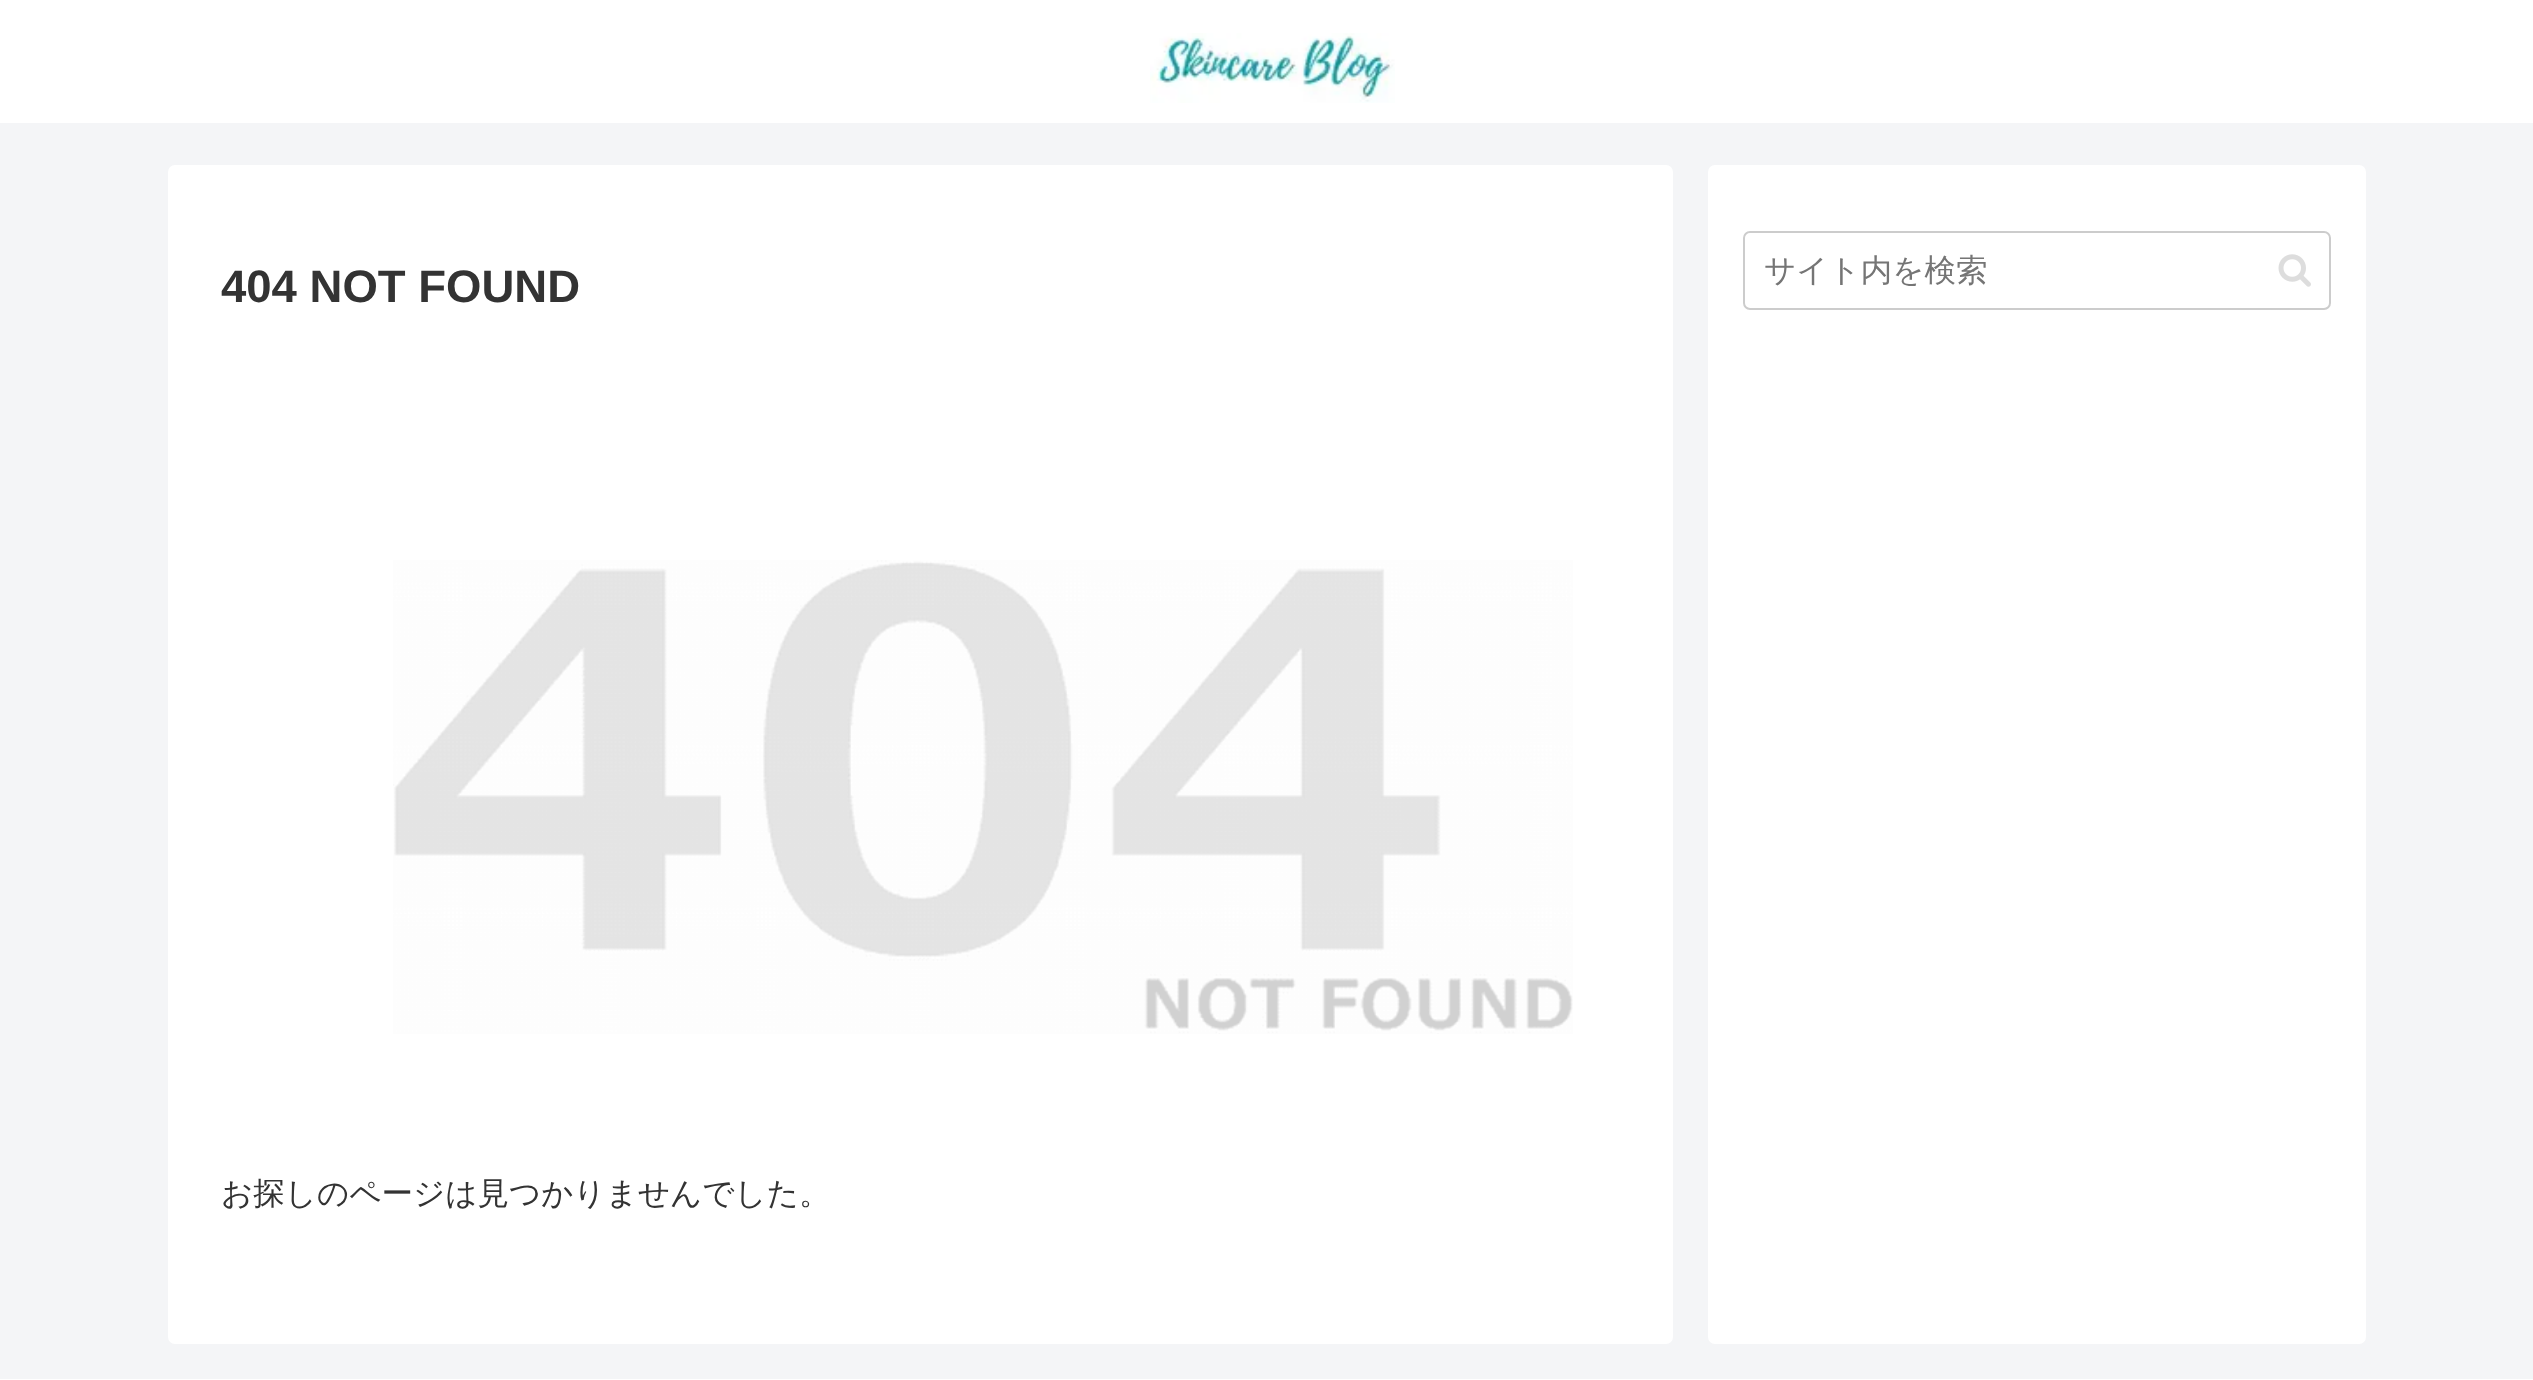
<?xml version="1.0" encoding="UTF-8"?>
<svg xmlns="http://www.w3.org/2000/svg" xmlns:xlink="http://www.w3.org/1999/xlink" width="2533" height="1380">
  <rect width="100%" height="100%" fill="#f4f5f7" />
  <rect width="2533" height="123" fill="#ffffff" />
  <image x="1150" y="33" width="245" height="70" xlink:href="image1.png" />
  <rect x="168" y="165" width="1505" height="1179" rx="7" fill="#ffffff" />
  <image x="393" y="560" width="1180" height="474" xlink:href="image2.png" />
  <rect x="1708" y="165" width="658" height="1179" rx="7" fill="#ffffff" />
  <rect x="1744" y="232" width="586" height="77" rx="6" fill="none" stroke="#cccccc" stroke-width="2" />
  <image x="2278" y="254" width="33" height="33" xlink:href="image3.png" />
  <rect y="1379" width="2533" height="1" fill="#ffffff" />
  <text x="221" y="302" style="font-family: Liberation Sans; font-size: 45.5px; font-weight: bold; fill: #333333">404 NOT FOUND</text>
  <text x="221" y="1204" style="font-family: WenQuanYi Zen Hei; font-size: 31.5px; font-weight: 500; fill: #333333">お探しのページは見つかりませんでした。</text>
  <text x="1764" y="281" style="font-family: WenQuanYi Zen Hei; font-size: 31.5px; font-weight: 500; fill: #757575">サイト内を検索</text>
</svg>
